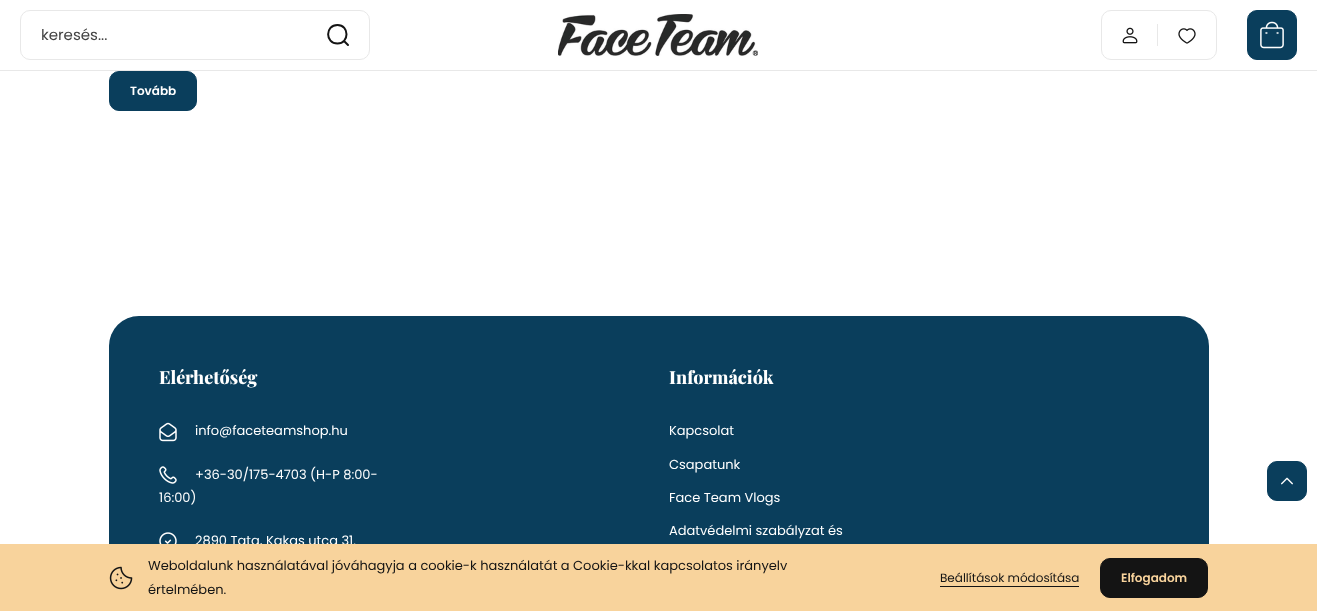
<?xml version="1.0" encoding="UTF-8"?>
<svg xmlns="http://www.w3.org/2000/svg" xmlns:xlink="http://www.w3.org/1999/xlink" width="1317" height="611">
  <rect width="100%" height="100%" fill="#ffffff" />
  <rect y="70" width="1317" height="1" fill="#e8e8e8" />
  <rect x="20.5" y="10.5" width="349" height="49" rx="9.5" fill="none" stroke="#e8e8e8" />
  <path d="M 348 45 l -4 -4 m -6.5 2.5 c -12.5 0 -12.5 -18.5 0 -18.5 c 12 0 12 18.5 0 18.5 z" fill="none" stroke="#141414" stroke-width="2" stroke-linecap="round" stroke-linejoin="round" />
  <image x="558" y="14" width="200" height="43" xlink:href="image1.png" />
  <rect x="1101.5" y="10.5" width="115" height="49" rx="9.5" fill="none" stroke="#e8e8e8" />
  <image x="1122" y="27" width="16" height="17" xlink:href="image2.png" />
  <rect x="1157" y="24" width="1" height="22" fill="#e8e8e8" />
  <image x="1178" y="28" width="18" height="16" xlink:href="image3.png" />
  <rect x="1247.5" y="10.5" width="49" height="49" rx="9.5" fill="#0a3e5c" stroke="#0a3e5c" />
  <image x="1260" y="21" width="24" height="28" xlink:href="image4.png" />
  <rect x="109.5" y="71.5" width="87" height="39" rx="9.5" fill="#0a3e5c" stroke="#0a3e5c" />
  <rect x="109" y="316" width="1100" height="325" rx="30" fill="#0a3e5c" />
  <image x="159" y="422" width="18" height="20" xlink:href="image5.png" />
  <image x="159" y="466" width="18" height="18" xlink:href="image6.png" />
  <image x="159" y="532" width="18" height="12" xlink:href="image7.png" />
  <rect x="1267.5" y="461.5" width="39" height="39" rx="9.5" fill="#0a3e5c" stroke="#0a3e5c" />
  <image x="1281" y="477" width="12" height="8" xlink:href="image8.png" />
  <text x="41" y="40" style="font-family: Poppins; font-size: 15px; fill: #434343">keresés...</text>
  <text x="130" y="95" style="font-family: Poppins; font-size: 12px; font-weight: 600; fill: #ffffff">Tovább</text>
  <text x="159" y="384" style="font-family: Playfair Display; font-size: 18px; font-weight: 800; fill: #ffffff">Elérhetőség</text>
  <text x="195" y="435" style="font-family: Poppins; font-size: 13px; fill: #ffffff">info@faceteamshop.hu</text>
  <text x="195" y="479" style="font-family: Poppins; font-size: 13px; fill: #ffffff">+36-30/175-4703 (H-P 8:00-</text>
  <text x="159" y="502" style="font-family: Poppins; font-size: 13px; fill: #ffffff">16:00)</text>
  <text x="195" y="545" style="font-family: Poppins; font-size: 13px; fill: #ffffff">2890 Tata, Kakas utca 31.</text>
  <text x="669" y="384" style="font-family: Playfair Display; font-size: 18px; font-weight: 800; fill: #ffffff">Információk</text>
  <text x="669" y="435" style="font-family: Poppins; font-size: 13px; fill: #ffffff">Kapcsolat</text>
  <text x="669" y="469" style="font-family: Poppins; font-size: 13px; fill: #ffffff">Csapatunk</text>
  <text x="669" y="502" style="font-family: Poppins; font-size: 13px; fill: #ffffff">Face Team Vlogs</text>
  <text x="669" y="535" style="font-family: Poppins; font-size: 13px; fill: #ffffff">Adatvédelmi szabályzat és</text>
  <rect y="544" width="1317" height="67" fill="#f8d39c" />
  <image x="109" y="566" width="24" height="24" xlink:href="image9.png" />
  <text x="148" y="570" style="font-family: Poppins; font-size: 13px; fill: #141414">Weboldalunk használatával jóváhagyja a cookie-k használatát a Cookie-kkal kapcsolatos irányelv</text>
  <text x="148" y="594" style="font-family: Poppins; font-size: 13px; fill: #141414">értelmében.</text>
  <text x="940" y="582" style="font-family: Poppins; font-size: 12px; fill: #141414">Beállítások módosítása</text>
  <rect x="940" y="586" width="139" height="1" fill="#141414" />
  <rect x="1100.5" y="558.5" width="107" height="39" rx="9.5" fill="#141414" stroke="#141414" />
  <text x="1121" y="582" style="font-family: Poppins; font-size: 12px; font-weight: 600; fill: #f8d39c">Elfogadom</text>
</svg>
